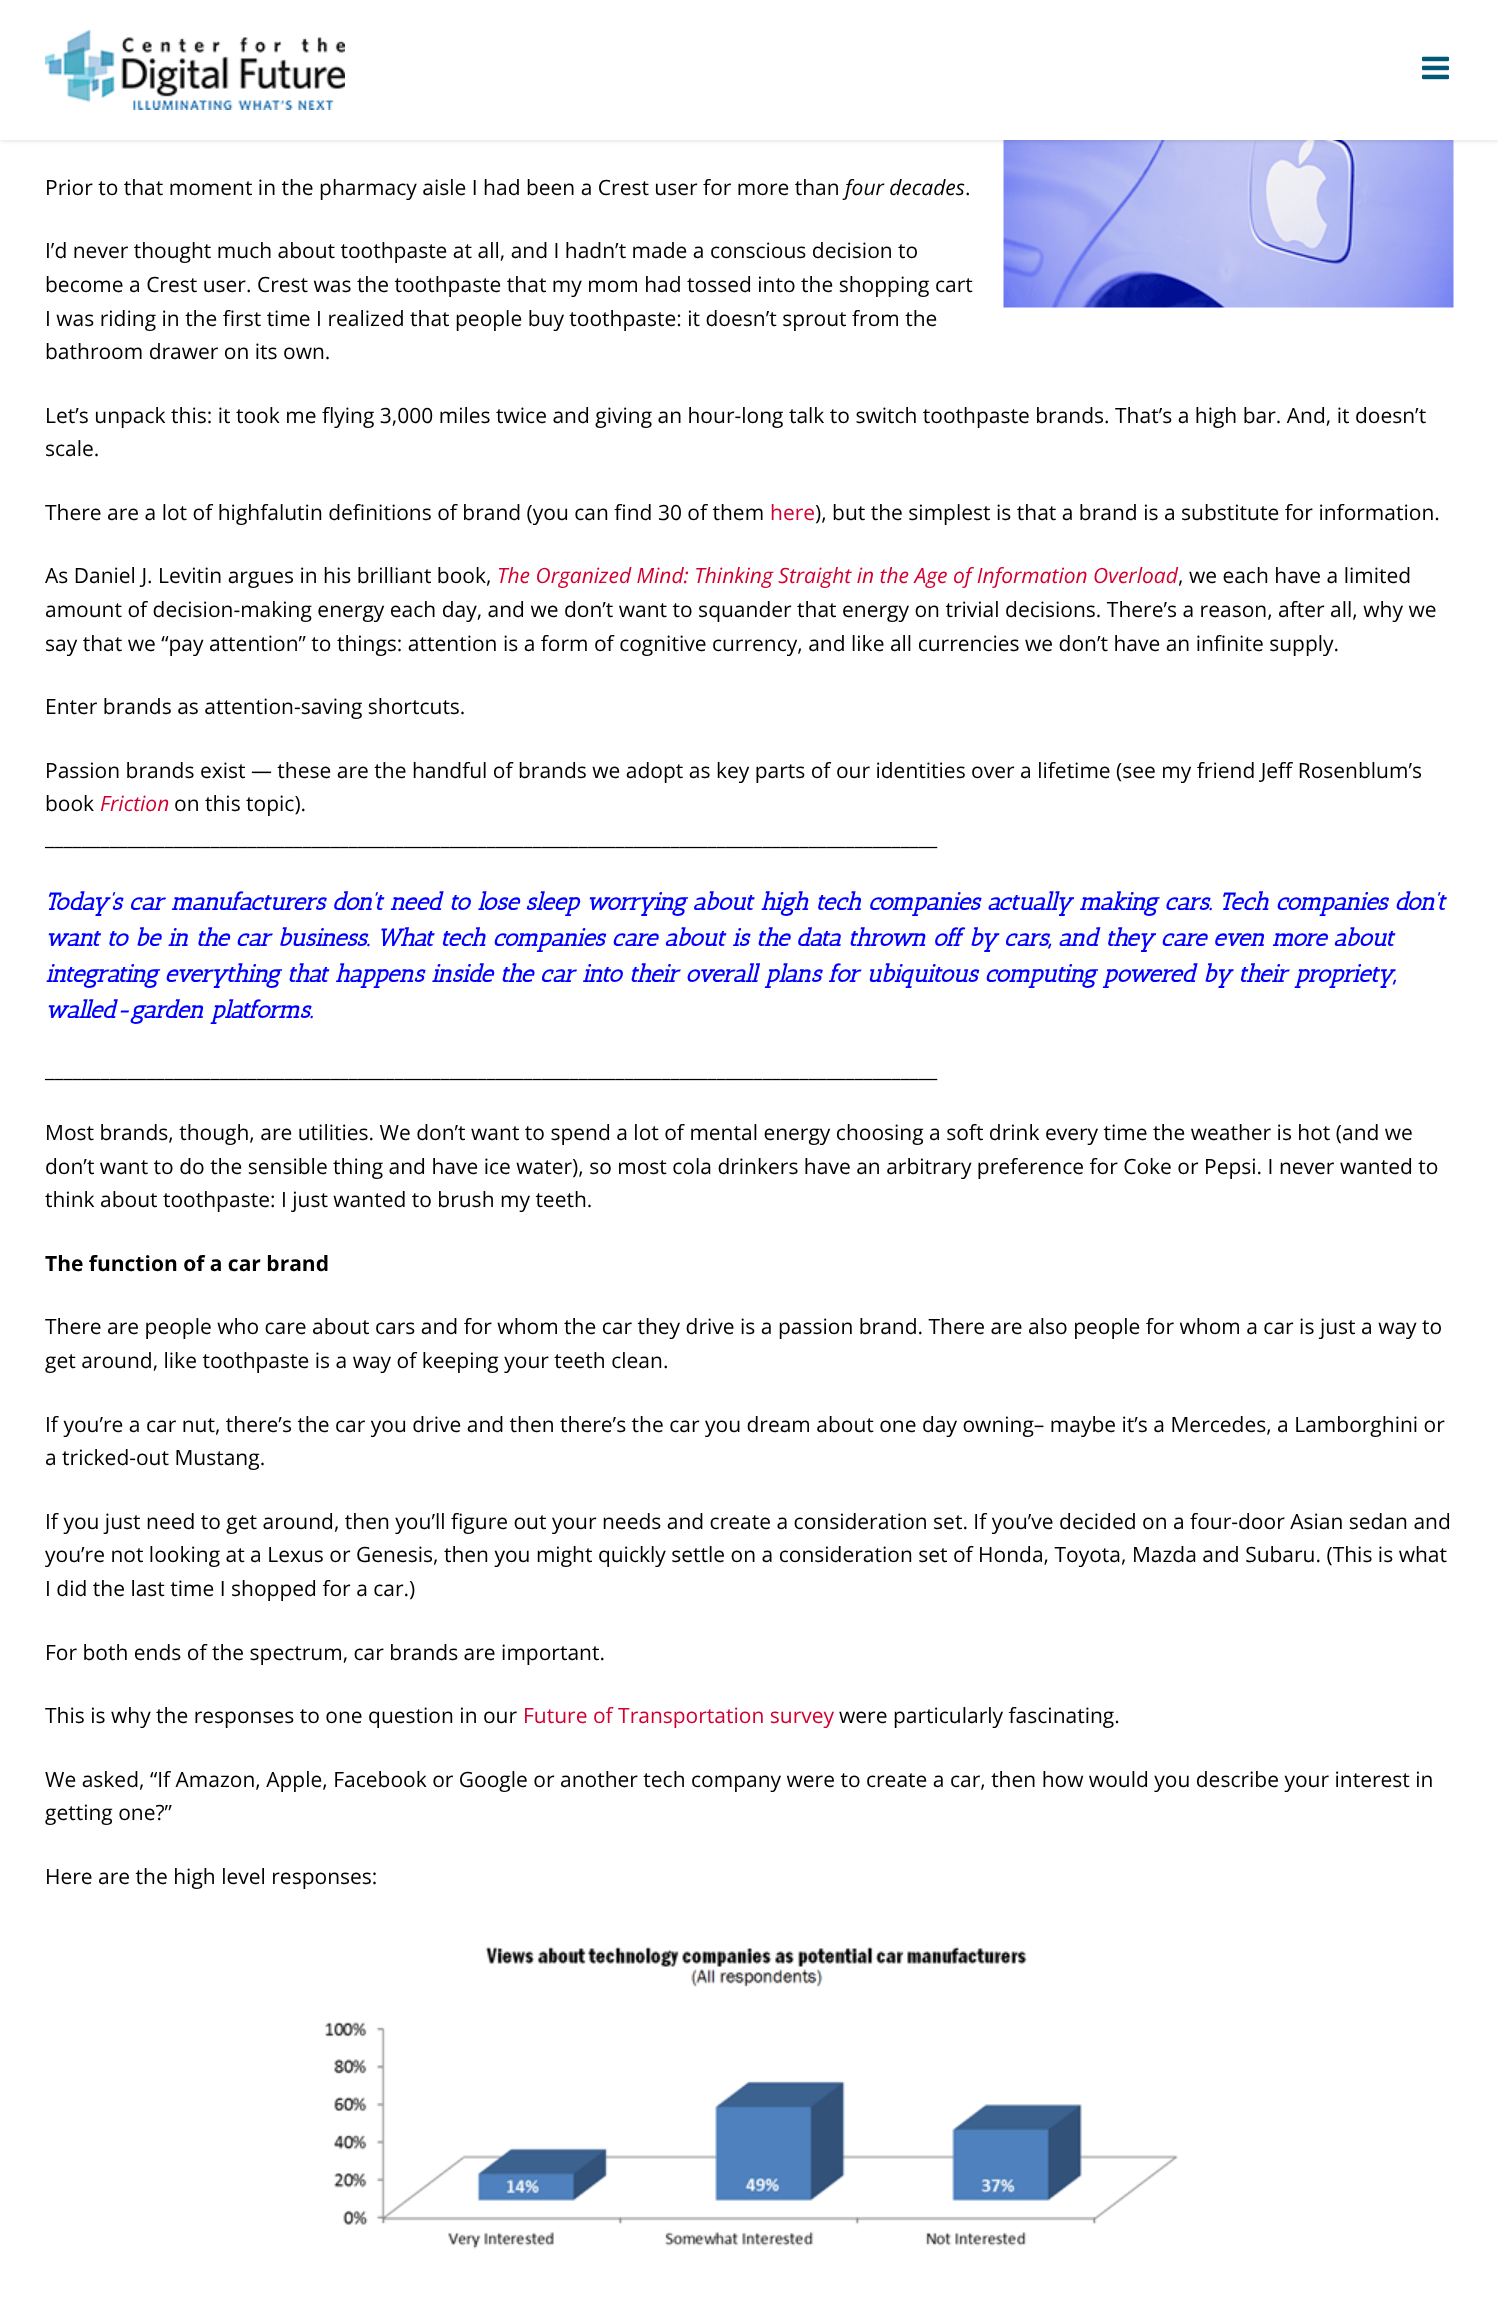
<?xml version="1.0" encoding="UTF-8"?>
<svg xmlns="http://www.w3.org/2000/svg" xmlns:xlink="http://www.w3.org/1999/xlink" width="1498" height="2298">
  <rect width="100%" height="100%" fill="#ffffff" />
  <image x="1003" y="140" width="451" height="168" xlink:href="image3.png" />
  <rect y="2" width="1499" height="139" fill="#000000" fill-opacity="0.12" filter="blur(2px)" />
  <rect width="1498" height="140" fill="#ffffff" />
  <image x="45" y="30" width="300" height="80" xlink:href="image1.png" />
  <image x="1422" y="56" width="27" height="24" xlink:href="image2.png" />
  <image x="325" y="1946" width="853" height="303" xlink:href="image4.png" />
  <text x="45" y="195" style="font-family: Open Sans; font-size: 21px; fill: #000000">Prior to that moment in the pharmacy aisle I had been a Crest user for more than</text>
  <text x="845" y="195" style="font-family: Open Sans; font-size: 21px; font-style: italic; fill: #000000">four decades</text>
  <text x="965" y="195" style="font-family: Open Sans; font-size: 21px; fill: #000000">.</text>
  <text x="45" y="258" style="font-family: Open Sans; font-size: 21px; fill: #000000">I’d never thought much about toothpaste at all, and I hadn’t made a conscious decision to</text>
  <text x="45" y="292" style="font-family: Open Sans; font-size: 21px; fill: #000000">become a Crest user. Crest was the toothpaste that my mom had tossed into the shopping cart</text>
  <text x="45" y="326" style="font-family: Open Sans; font-size: 21px; fill: #000000">I was riding in the first time I realized that people buy toothpaste: it doesn’t sprout from the</text>
  <text x="45" y="359" style="font-family: Open Sans; font-size: 21px; fill: #000000">bathroom drawer on its own.</text>
  <text x="45" y="423" style="font-family: Open Sans; font-size: 21px; fill: #000000">Let’s unpack this: it took me flying 3,000 miles twice and giving an hour-long talk to switch toothpaste brands. That’s a high bar. And, it doesn’t</text>
  <text x="45" y="456" style="font-family: Open Sans; font-size: 21px; fill: #000000">scale.</text>
  <text x="45" y="520" style="font-family: Open Sans; font-size: 21px; fill: #000000">There are a lot of highfalutin definitions of brand (you can find 30 of them</text>
  <text x="770" y="520" style="font-family: Open Sans; font-size: 21px; fill: #d10030">here</text>
  <text x="815" y="520" style="font-family: Open Sans; font-size: 21px; fill: #000000">), but the simplest is that a brand is a substitute for information.</text>
  <text x="45" y="583" style="font-family: Open Sans; font-size: 21px; fill: #000000">As Daniel J. Levitin argues in his brilliant book,</text>
  <text x="497" y="583" style="font-family: Open Sans; font-size: 21px; font-style: italic; fill: #d10030">The Organized Mind: Thinking Straight in the Age of Information Overload</text>
  <text x="1178" y="583" style="font-family: Open Sans; font-size: 21px; fill: #000000">, we each have a limited</text>
  <text x="45" y="617" style="font-family: Open Sans; font-size: 21px; fill: #000000">amount of decision-making energy each day, and we don’t want to squander that energy on trivial decisions. There’s a reason, after all, why we</text>
  <text x="45" y="651" style="font-family: Open Sans; font-size: 21px; fill: #000000">say that we “pay attention” to things: attention is a form of cognitive currency, and like all currencies we don’t have an infinite supply.</text>
  <text x="45" y="714" style="font-family: Open Sans; font-size: 21px; fill: #000000">Enter brands as attention-saving shortcuts.</text>
  <text x="45" y="778" style="font-family: Open Sans; font-size: 21px; fill: #000000">Passion brands exist — these are the handful of brands we adopt as key parts of our identities over a lifetime (see my friend Jeff Rosenblum’s</text>
  <text x="45" y="811" style="font-family: Open Sans; font-size: 21px; fill: #000000">book</text>
  <text x="100" y="811" style="font-family: Open Sans; font-size: 21px; font-style: italic; fill: #d10030">Friction</text>
  <text x="174" y="811" style="font-family: Open Sans; font-size: 21px; fill: #000000">on this topic).</text>
  <text x="45" y="845" style="font-family: Open Sans; font-size: 21px; fill: #000000">_________________________________________________________________________________________________</text>
  <text x="45" y="910" style="font-family: Antic Slab; font-size: 24px; font-weight: bold; font-style: italic; fill: #0000ff">Today’s car manufacturers don’t need to lose sleep worrying about high tech companies actually making cars. Tech companies don’t</text>
  <text x="45" y="946" style="font-family: Antic Slab; font-size: 24px; font-weight: bold; font-style: italic; fill: #0000ff">want to be in the car business. What tech companies care about is the data thrown off by cars, and they care even more about</text>
  <text x="45" y="982" style="font-family: Antic Slab; font-size: 24px; font-weight: bold; font-style: italic; fill: #0000ff">integrating everything that happens inside the car into their overall plans for ubiquitous computing powered by their propriety,</text>
  <text x="45" y="1018" style="font-family: Antic Slab; font-size: 24px; font-weight: bold; font-style: italic; fill: #0000ff">walled-garden platforms.</text>
  <text x="45" y="1077" style="font-family: Open Sans; font-size: 21px; fill: #000000">_________________________________________________________________________________________________</text>
  <text x="45" y="1140" style="font-family: Open Sans; font-size: 21px; fill: #000000">Most brands, though, are utilities. We don’t want to spend a lot of mental energy choosing a soft drink every time the weather is hot (and we</text>
  <text x="45" y="1174" style="font-family: Open Sans; font-size: 21px; fill: #000000">don’t want to do the sensible thing and have ice water), so most cola drinkers have an arbitrary preference for Coke or Pepsi. I never wanted to</text>
  <text x="45" y="1207" style="font-family: Open Sans; font-size: 21px; fill: #000000">think about toothpaste: I just wanted to brush my teeth.</text>
  <text x="45" y="1271" style="font-family: Open Sans; font-size: 21px; font-weight: bold; fill: #000000">The function of a car brand</text>
  <text x="45" y="1334" style="font-family: Open Sans; font-size: 21px; fill: #000000">There are people who care about cars and for whom the car they drive is a passion brand. There are also people for whom a car is just a way to</text>
  <text x="45" y="1368" style="font-family: Open Sans; font-size: 21px; fill: #000000">get around, like toothpaste is a way of keeping your teeth clean.</text>
  <text x="45" y="1432" style="font-family: Open Sans; font-size: 21px; fill: #000000">If you’re a car nut, there’s the car you drive and then there’s the car you dream about one day owning– maybe it’s a Mercedes, a Lamborghini or</text>
  <text x="45" y="1465" style="font-family: Open Sans; font-size: 21px; fill: #000000">a tricked-out Mustang.</text>
  <text x="45" y="1529" style="font-family: Open Sans; font-size: 21px; fill: #000000">If you just need to get around, then you’ll figure out your needs and create a consideration set. If you’ve decided on a four-door Asian sedan and</text>
  <text x="45" y="1562" style="font-family: Open Sans; font-size: 21px; fill: #000000">you’re not looking at a Lexus or Genesis, then you might quickly settle on a consideration set of Honda, Toyota, Mazda and Subaru. (This is what</text>
  <text x="45" y="1596" style="font-family: Open Sans; font-size: 21px; fill: #000000">I did the last time I shopped for a car.)</text>
  <text x="45" y="1660" style="font-family: Open Sans; font-size: 21px; fill: #000000">For both ends of the spectrum, car brands are important.</text>
  <text x="45" y="1723" style="font-family: Open Sans; font-size: 21px; fill: #000000">This is why the responses to one question in our</text>
  <text x="523" y="1723" style="font-family: Open Sans; font-size: 21px; fill: #d10030">Future of Transportation survey</text>
  <text x="839" y="1723" style="font-family: Open Sans; font-size: 21px; fill: #000000">were particularly fascinating.</text>
  <text x="45" y="1787" style="font-family: Open Sans; font-size: 21px; fill: #000000">We asked, “If Amazon, Apple, Facebook or Google or another tech company were to create a car, then how would you describe your interest in</text>
  <text x="45" y="1820" style="font-family: Open Sans; font-size: 21px; fill: #000000">getting one?”</text>
  <text x="45" y="1884" style="font-family: Open Sans; font-size: 21px; fill: #000000">Here are the high level responses:</text>
</svg>
